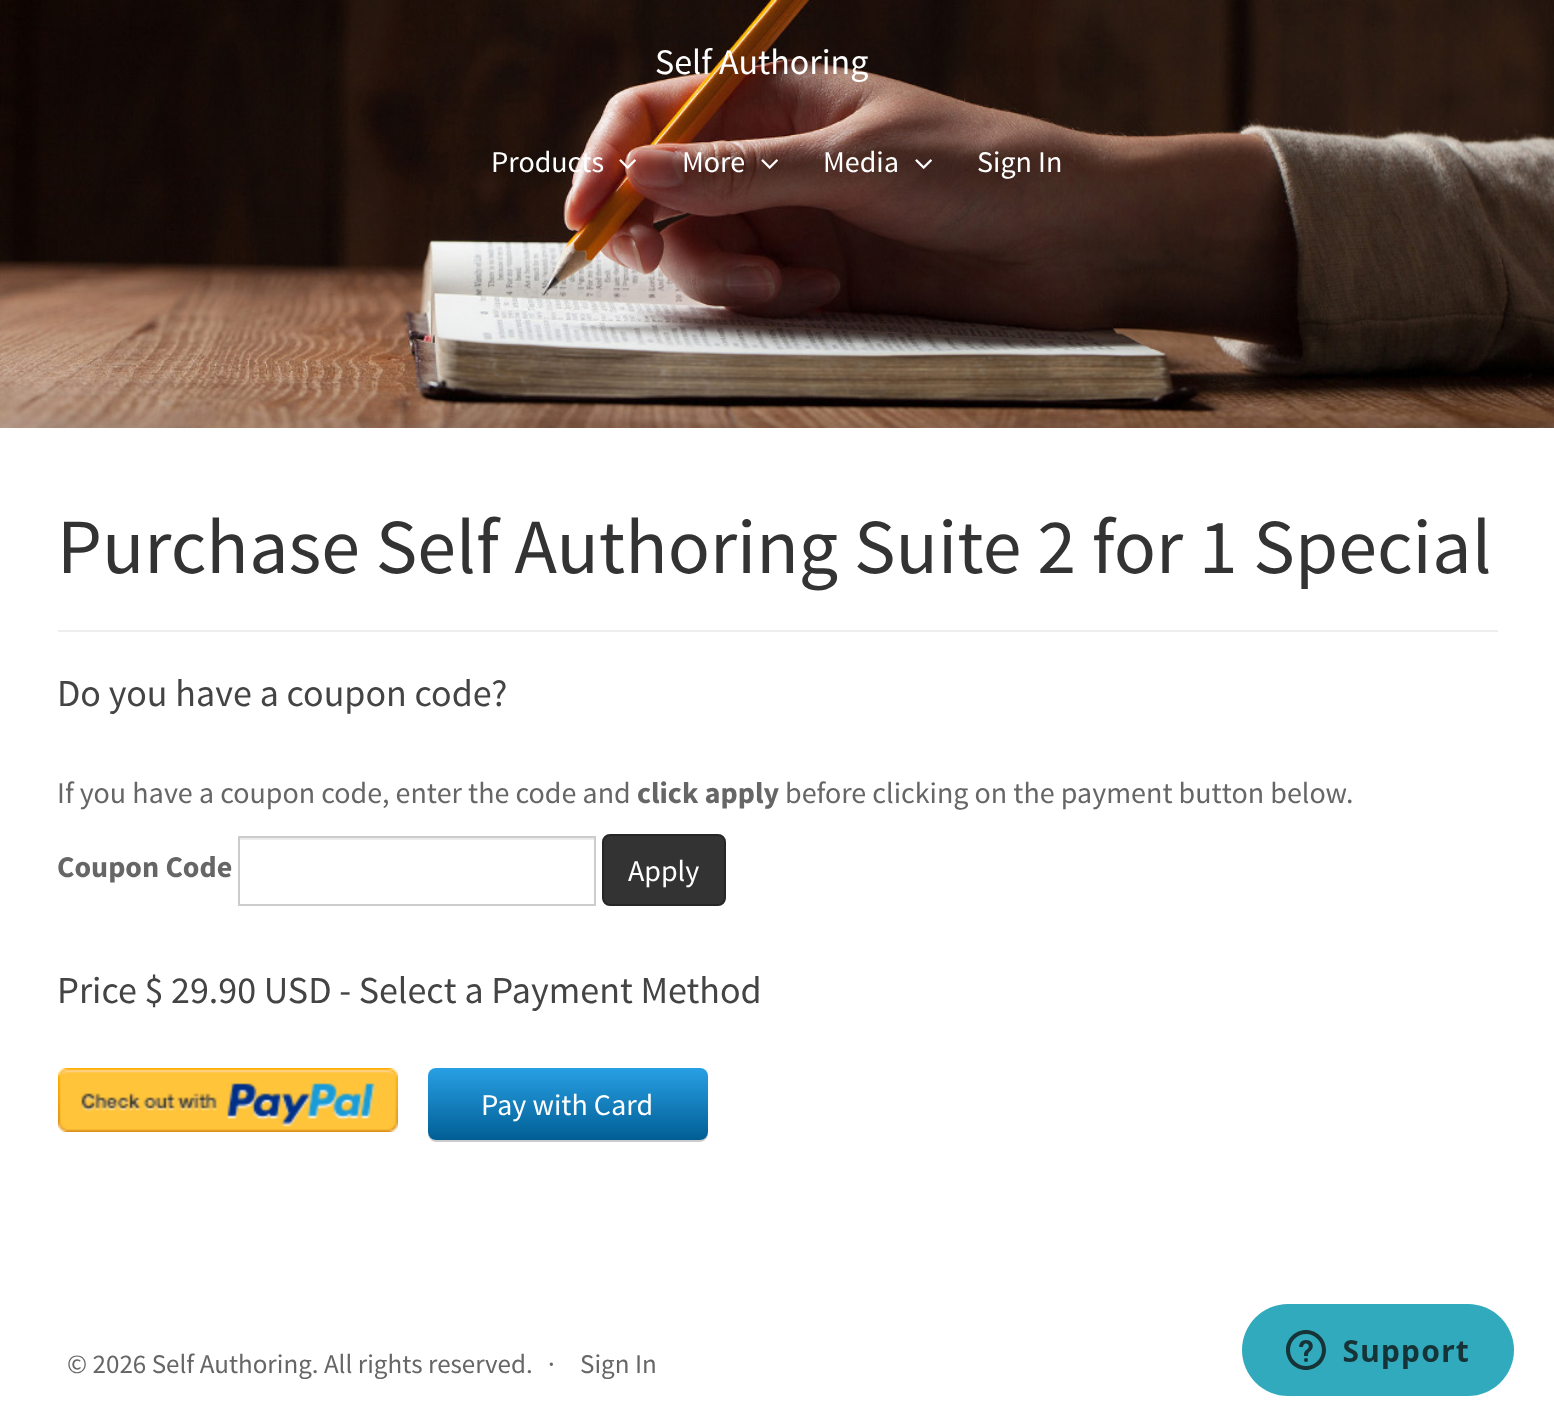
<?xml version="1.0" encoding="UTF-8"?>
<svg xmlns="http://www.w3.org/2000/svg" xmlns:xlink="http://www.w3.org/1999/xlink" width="1554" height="1423">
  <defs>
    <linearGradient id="g1" gradientUnits="userSpaceOnUse" x1="568" y1="1068" x2="568" y2="1140"><stop offset="0" stop-color="#28a0e5" /><stop offset="1" stop-color="#015e94" /></linearGradient>
  </defs>
  <rect width="100%" height="100%" fill="#ffffff" />
  <image x="0" y="0" width="1554" height="428" xlink:href="image1.png" />
  <image x="619" y="159" width="17" height="10" xlink:href="image2.png" />
  <image x="761" y="159" width="17" height="10" xlink:href="image3.png" />
  <image x="915" y="159" width="17" height="10" xlink:href="image4.png" />
  <rect x="58" y="630" width="1440" height="2" fill="#eeeeee" />
  <rect x="240" y="838" width="354" height="2" fill="#ececec" />
  <rect x="239" y="837" width="356" height="68" fill="none" stroke="#cccccc" stroke-width="2" />
  <rect x="603" y="835" width="122" height="70" rx="7" fill="#333333" stroke="#262626" stroke-width="2" />
  <image x="58" y="1068" width="340" height="64" xlink:href="image5.png" />
  <path d="M 428 1132 v 2 c 0 4 4 8 8 8 h 264 c 4 0 8 -4 8 -8 v -2 c 0 4 -4 8 -8 8 h -264 c -4 0 -8 -4 -8 -8 z" fill="#cccccc" />
  <rect x="428" y="1068" width="280" height="72" rx="8" fill="url(#g1)" />
  <image x="1242" y="1304" width="272" height="92" xlink:href="image6.png" />
  <text x="655" y="74" style="font-family: Source Sans Pro; font-size: 36px; fill: #ffffff">Self Authoring</text>
  <text x="491" y="172" style="font-family: Source Sans Pro; font-size: 30px; fill: #ffffff">Products</text>
  <text x="682" y="172" style="font-family: Source Sans Pro; font-size: 30px; fill: #ffffff">More</text>
  <text x="823" y="172" style="font-family: Source Sans Pro; font-size: 30px; fill: #ffffff">Media</text>
  <text x="977" y="172" style="font-family: Source Sans Pro; font-size: 30px; fill: #ffffff">Sign In</text>
  <text x="57" y="573" style="font-family: Source Sans Pro; font-size: 78px; fill: #333333">Purchase Self Authoring Suite 2 for 1 Special</text>
  <text x="57" y="706" style="font-family: Source Sans Pro; font-size: 38px; fill: #444444">Do you have a coupon code?</text>
  <text x="57" y="803" style="font-family: Source Sans Pro; font-size: 30px; fill: #666666">If you have a coupon code, enter the code and</text>
  <text x="637" y="803" style="font-family: Source Sans Pro; font-size: 30px; font-weight: bold; fill: #666666">click apply</text>
  <text x="785" y="803" style="font-family: Source Sans Pro; font-size: 30px; fill: #666666">before clicking on the payment button below.</text>
  <text x="57" y="877" style="font-family: Source Sans Pro; font-size: 30px; font-weight: bold; fill: #666666">Coupon Code</text>
  <text x="628" y="881" style="font-family: Source Sans Pro; font-size: 30px; fill: #ffffff">Apply</text>
  <text x="57" y="1003" style="font-family: Source Sans Pro; font-size: 38px; fill: #444444">Price $ 29.90 USD - Select a Payment Method</text>
  <text x="481" y="1115" style="font-family: Source Sans Pro; font-size: 30px; fill: #ffffff">Pay with Card</text>
  <text x="67" y="1373" style="font-family: Source Sans Pro; font-size: 27px; fill: #666666">© 2026 Self Authoring. All rights reserved.</text>
  <text x="548" y="1373" style="font-family: Source Sans Pro; font-size: 27px; fill: #666666">·</text>
  <text x="580" y="1373" style="font-family: Source Sans Pro; font-size: 27px; fill: #666666">Sign In</text>
</svg>
